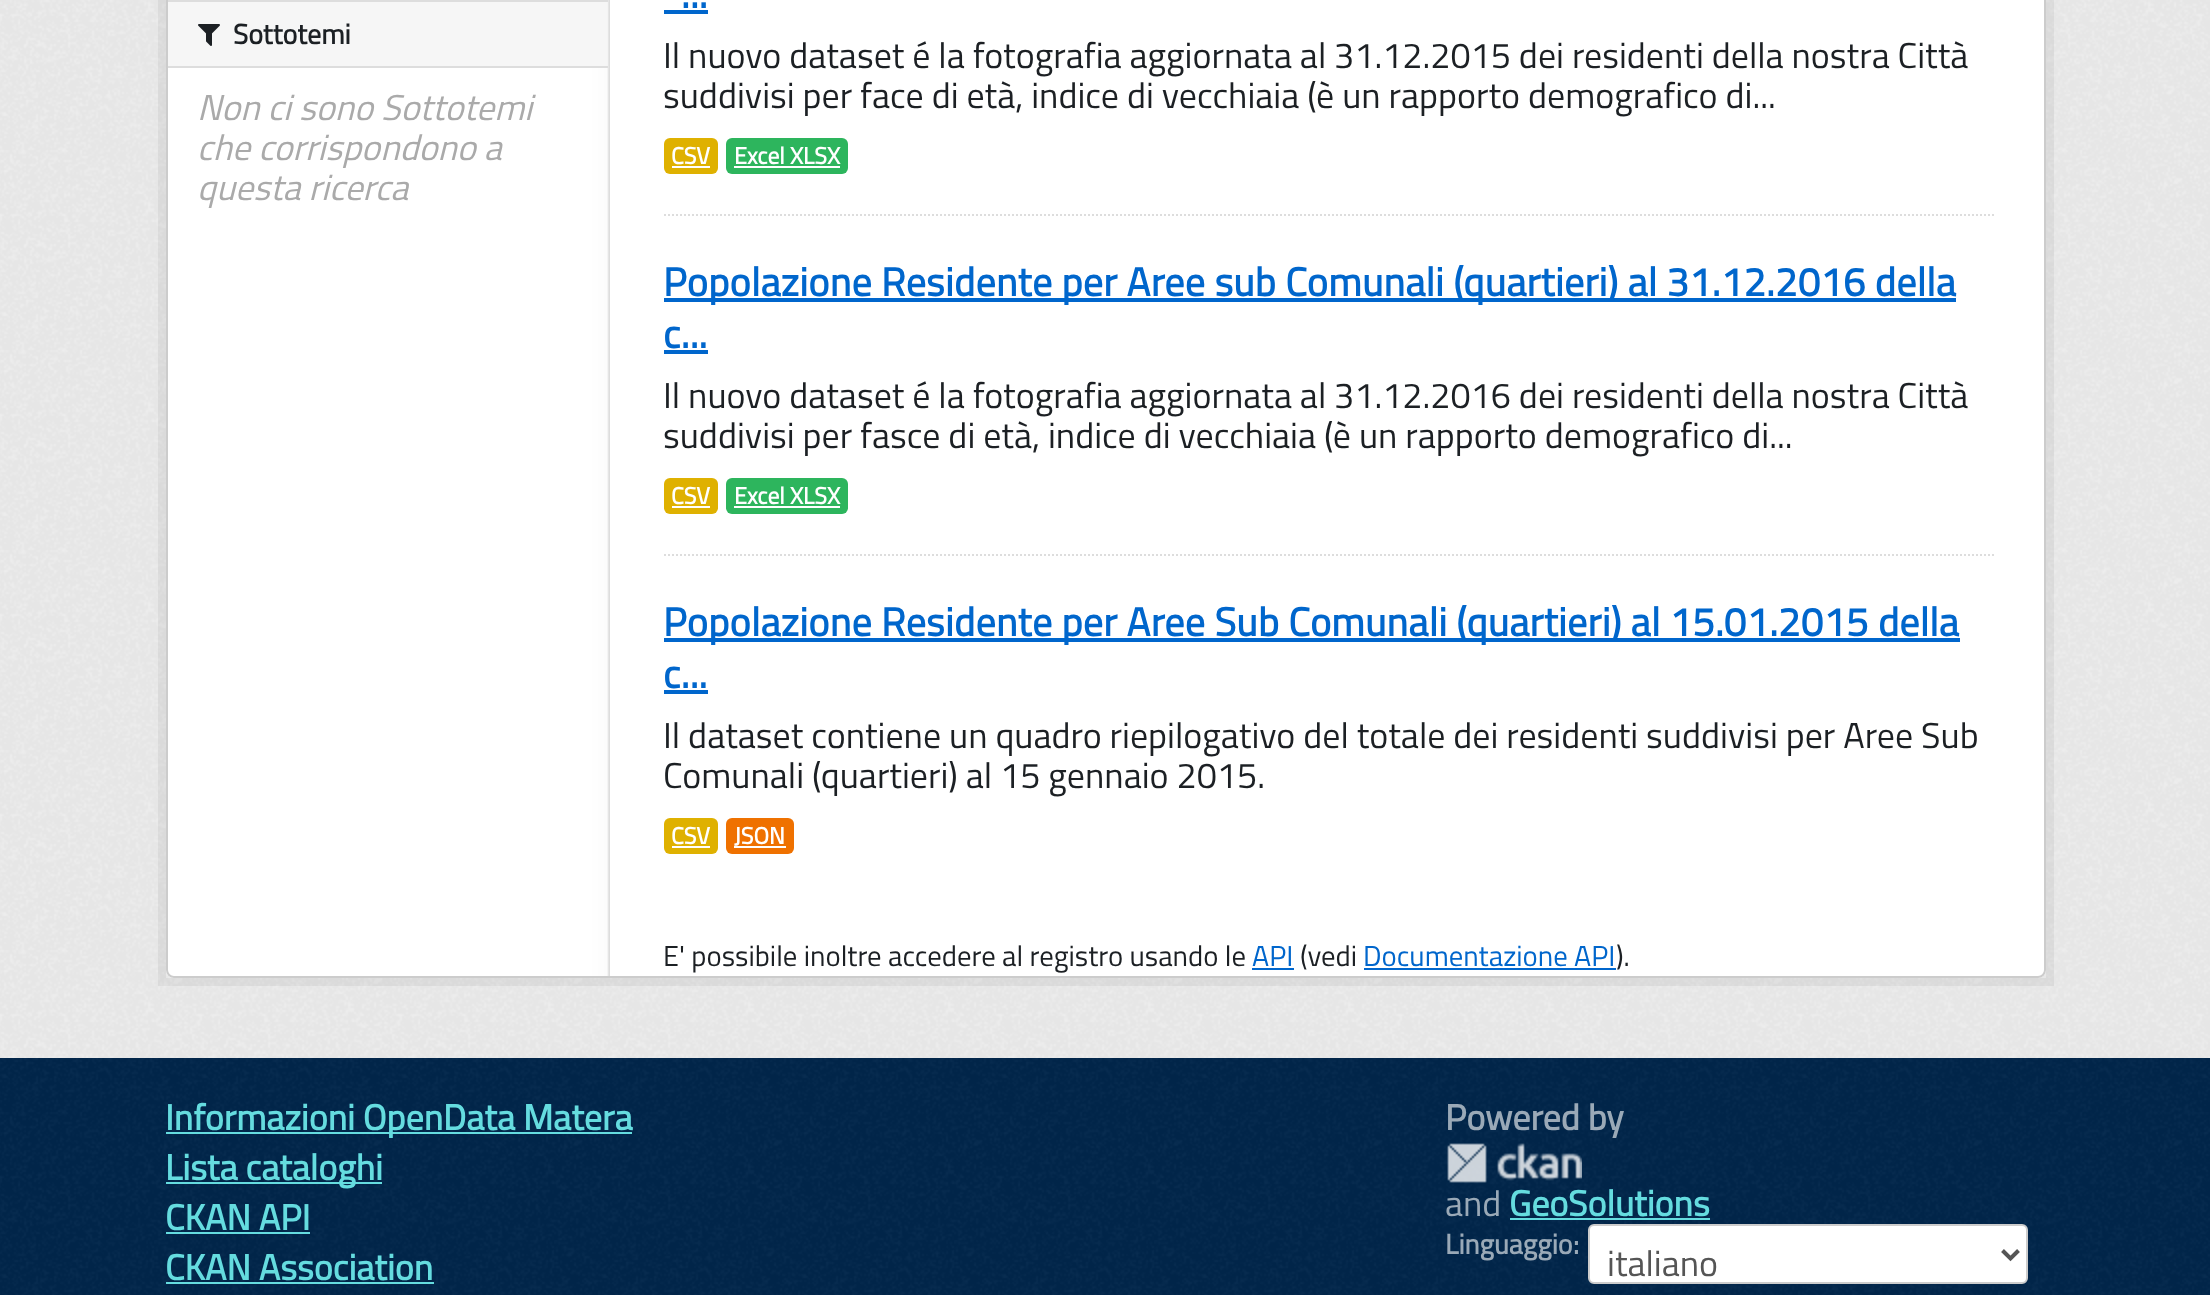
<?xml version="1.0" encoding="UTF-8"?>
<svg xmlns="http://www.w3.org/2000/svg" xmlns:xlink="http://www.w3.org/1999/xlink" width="2210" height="1295">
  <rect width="100%" height="100%" fill="#02274c" />
  <rect width="2210" height="1058" fill="#eeeeee" />
  <image x="0" y="0" width="2210" height="1058" xlink:href="image1.png" />
  <rect x="162" y="-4" width="1888" height="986" fill="none" stroke="#000000" stroke-opacity="0.05" stroke-width="8" />
  <rect x="166" y="-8" width="1880" height="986" rx="8" fill="#ffffff" />
  <image x="168" y="0" width="442" height="978" xlink:href="image2.png" />
  <rect x="167" y="-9" width="1878" height="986" rx="7" fill="none" stroke="#cccccc" stroke-width="2" />
  <rect x="168" y="2" width="439" height="64" fill="#f6f6f6" />
  <rect x="168" width="440" height="2" fill="#dddddd" />
  <rect x="168" y="66" width="440" height="2" fill="#dddddd" />
  <image x="198" y="24" width="22" height="22" xlink:href="image3.png" />
  <path d="M 664 215 h 1330" fill="none" stroke="#dddddd" stroke-width="2" stroke-dasharray="2 2" />
  <rect x="664" y="10" width="44" height="4" fill="#0066cc" />
  <rect x="664" y="138" width="54" height="36" rx="6" fill="#dfb100" />
  <rect x="672" y="166" width="38" height="2" fill="#ffffff" />
  <rect x="726" y="138" width="122" height="36" rx="6" fill="#2db55d" />
  <rect x="734" y="166" width="106" height="2" fill="#ffffff" />
  <path d="M 664 555 h 1330" fill="none" stroke="#dddddd" stroke-width="2" stroke-dasharray="2 2" />
  <rect x="664" y="298" width="1292" height="4" fill="#0066cc" />
  <rect x="664" y="350" width="44" height="4" fill="#0066cc" />
  <rect x="664" y="478" width="54" height="36" rx="6" fill="#dfb100" />
  <rect x="672" y="506" width="38" height="2" fill="#ffffff" />
  <rect x="726" y="478" width="122" height="36" rx="6" fill="#2db55d" />
  <rect x="734" y="506" width="106" height="2" fill="#ffffff" />
  <rect x="664" y="638" width="1296" height="4" fill="#0066cc" />
  <rect x="664" y="690" width="44" height="4" fill="#0066cc" />
  <rect x="664" y="818" width="54" height="36" rx="6" fill="#dfb100" />
  <rect x="672" y="846" width="38" height="2" fill="#ffffff" />
  <rect x="726" y="818" width="68" height="36" rx="6" fill="#ef7100" />
  <rect x="734" y="846" width="52" height="2" fill="#ffffff" />
  <rect x="1252" y="968" width="42" height="2" fill="#0066cc" />
  <rect x="1364" y="968" width="252" height="2" fill="#0066cc" />
  <image x="0" y="1058" width="2210" height="237" xlink:href="image4.png" />
  <rect x="166" y="1132" width="466" height="2" fill="#65dcdf" />
  <rect x="166" y="1182" width="216" height="2" fill="#65dcdf" />
  <rect x="166" y="1232" width="144" height="2" fill="#65dcdf" />
  <rect x="166" y="1282" width="268" height="2" fill="#65dcdf" />
  <image x="1447" y="1143" width="135" height="40" xlink:href="image5.png" />
  <rect x="1510" y="1218" width="200" height="2" fill="#65dcdf" />
  <rect x="1589" y="1225" width="438" height="58" rx="5" fill="#ffffff" stroke="#cccccc" stroke-width="2" />
  <path d="M 2002.5 1250.5 l 8 8 l 8 -8" fill="none" stroke="#555555" stroke-width="4" />
  <text x="233" y="44" style="font-family: Titillium Web; font-size: 28px; font-weight: bold; fill: #1c2024">Sottotemi</text>
  <text x="197" y="120" style="font-family: Titillium Web; font-size: 36px; font-style: italic; fill: #aaaaaa">Non ci sono Sottotemi</text>
  <text x="197" y="160" style="font-family: Titillium Web; font-size: 36px; font-style: italic; fill: #aaaaaa">che corrispondono a</text>
  <text x="197" y="200" style="font-family: Titillium Web; font-size: 36px; font-style: italic; fill: #aaaaaa">questa ricerca</text>
  <text x="681" y="8" style="font-family: Titillium Web; font-size: 40px; font-weight: bold; letter-spacing: 0.28px; fill: #0066cc">...</text>
  <text x="663" y="68" style="font-family: Titillium Web; font-size: 36px; fill: #1c2024">Il nuovo dataset é la fotografia aggiornata al 31.12.2015 dei residenti della nostra Città</text>
  <text x="663" y="108" style="font-family: Titillium Web; font-size: 36px; fill: #1c2024">suddivisi per face di età, indice di vecchiaia (è un rapporto demografico di...</text>
  <text x="671" y="164" style="font-family: Titillium Web; font-size: 23.5px; font-weight: bold; fill: #ffffff">CSV</text>
  <text x="734" y="164" style="font-family: Titillium Web; font-size: 23.5px; font-weight: bold; fill: #ffffff">Excel XLSX</text>
  <text x="663" y="296" style="font-family: Titillium Web; font-size: 40px; font-weight: bold; letter-spacing: 0.28px; fill: #0066cc">Popolazione Residente per Aree sub Comunali (quartieri) al 31.12.2016 della</text>
  <text x="663" y="348" style="font-family: Titillium Web; font-size: 40px; font-weight: bold; letter-spacing: 0.28px; fill: #0066cc">c...</text>
  <text x="663" y="408" style="font-family: Titillium Web; font-size: 36px; fill: #1c2024">Il nuovo dataset é la fotografia aggiornata al 31.12.2016 dei residenti della nostra Città</text>
  <text x="663" y="448" style="font-family: Titillium Web; font-size: 36px; fill: #1c2024">suddivisi per fasce di età, indice di vecchiaia (è un rapporto demografico di...</text>
  <text x="671" y="504" style="font-family: Titillium Web; font-size: 23.5px; font-weight: bold; fill: #ffffff">CSV</text>
  <text x="734" y="504" style="font-family: Titillium Web; font-size: 23.5px; font-weight: bold; fill: #ffffff">Excel XLSX</text>
  <text x="663" y="636" style="font-family: Titillium Web; font-size: 40px; font-weight: bold; letter-spacing: 0.28px; fill: #0066cc">Popolazione Residente per Aree Sub Comunali (quartieri) al 15.01.2015 della</text>
  <text x="663" y="688" style="font-family: Titillium Web; font-size: 40px; font-weight: bold; letter-spacing: 0.28px; fill: #0066cc">c...</text>
  <text x="663" y="748" style="font-family: Titillium Web; font-size: 36px; fill: #1c2024">Il dataset contiene un quadro riepilogativo del totale dei residenti suddivisi per Aree Sub</text>
  <text x="663" y="788" style="font-family: Titillium Web; font-size: 36px; fill: #1c2024">Comunali (quartieri) al 15 gennaio 2015.</text>
  <text x="671" y="844" style="font-family: Titillium Web; font-size: 23.5px; font-weight: bold; fill: #ffffff">CSV</text>
  <text x="734" y="844" style="font-family: Titillium Web; font-size: 23.5px; font-weight: bold; fill: #ffffff">JSON</text>
  <text x="663" y="966" style="font-family: Titillium Web; font-size: 28.8px; fill: #1c2024">E' possibile inoltre accedere al registro usando le</text>
  <text x="1252" y="966" style="font-family: Titillium Web; font-size: 28.8px; fill: #0066cc">API</text>
  <text x="1300" y="966" style="font-family: Titillium Web; font-size: 28.8px; fill: #1c2024">(vedi</text>
  <text x="1363" y="966" style="font-family: Titillium Web; font-size: 28.8px; fill: #0066cc">Documentazione API</text>
  <text x="1616" y="966" style="font-family: Titillium Web; font-size: 28.8px; fill: #1c2024">).</text>
  <text x="165" y="1130" style="font-family: Titillium Web; font-size: 36px; font-weight: bold; fill: #65dcdf">Informazioni OpenData Matera</text>
  <text x="165" y="1180" style="font-family: Titillium Web; font-size: 36px; font-weight: bold; fill: #65dcdf">Lista cataloghi</text>
  <text x="165" y="1230" style="font-family: Titillium Web; font-size: 36px; font-weight: bold; fill: #65dcdf">CKAN API</text>
  <text x="165" y="1280" style="font-family: Titillium Web; font-size: 36px; font-weight: bold; fill: #65dcdf">CKAN Association</text>
  <text x="1445" y="1130" style="font-family: Titillium Web; font-size: 36px; font-weight: bold; fill: #9aa9b7">Powered by</text>
  <text x="1445" y="1216" style="font-family: Titillium Web; font-size: 36px; fill: #9aa9b7">and</text>
  <text x="1509" y="1216" style="font-family: Titillium Web; font-size: 36px; font-weight: bold; fill: #65dcdf">GeoSolutions</text>
  <text x="1445" y="1254" style="font-family: Titillium Web; font-size: 28px; font-weight: bold; fill: #9aa9b7">Linguaggio</text>
  <text x="1573" y="1254" style="font-family: Titillium Web; font-size: 28px; font-weight: bold; fill: #9aa9b7">:</text>
  <text x="1607" y="1276" style="font-family: Titillium Web; font-size: 36px; fill: #555555">italiano</text>
</svg>
